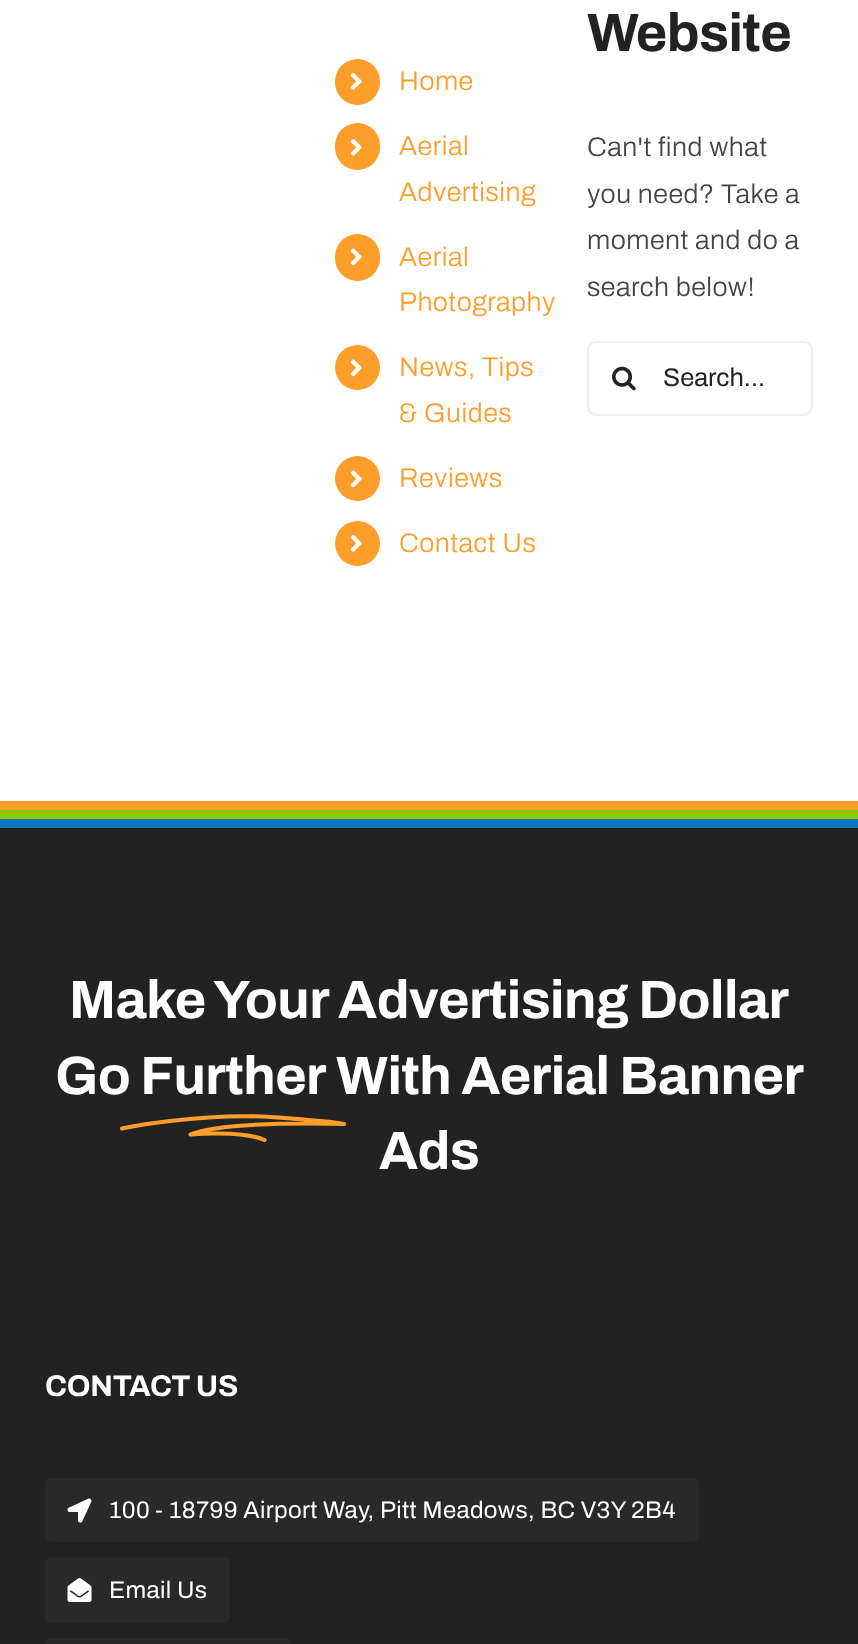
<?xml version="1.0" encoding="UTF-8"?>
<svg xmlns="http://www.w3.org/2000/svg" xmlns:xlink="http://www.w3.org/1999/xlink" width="858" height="1644">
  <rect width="100%" height="100%" fill="#ffffff" />
  <rect x="335" y="59" width="45" height="46" rx="22.5" fill="#fd9d2a" />
  <image x="350" y="73" width="12" height="17" xlink:href="image1.png" />
  <rect x="335" y="123" width="45" height="47" rx="22.5" fill="#fd9d2a" />
  <image x="350" y="139" width="12" height="17" xlink:href="image1.png" />
  <rect x="335" y="234" width="45" height="47" rx="22.5" fill="#fd9d2a" />
  <image x="350" y="248" width="12" height="18" xlink:href="image2.png" />
  <circle cx="357.5" cy="367.5" r="22.5" fill="#fd9d2a" />
  <image x="350" y="359" width="12" height="18" xlink:href="image2.png" />
  <circle cx="357.5" cy="478.5" r="22.5" fill="#fd9d2a" />
  <image x="350" y="470" width="12" height="18" xlink:href="image2.png" />
  <circle cx="357.5" cy="543.5" r="22.5" fill="#fd9d2a" />
  <image x="350" y="535" width="12" height="17" xlink:href="image1.png" />
  <rect x="588" y="342" width="224" height="73" rx="8" fill="none" stroke="#efefef" stroke-width="2" />
  <image x="612" y="366" width="24" height="25" xlink:href="image3.png" />
  <rect y="801" width="858" height="9" fill="#fd9d2a" />
  <rect y="810" width="858" height="9" fill="#8bca02" />
  <rect y="819" width="858" height="9" fill="#0e76bc" />
  <rect y="828" width="858" height="816" fill="#222222" />
  <path d="M 122 1128.5 c 0 0 78.5 -16 148.5 -11.5 c 70.5 5 73.5 7 73.5 7 c 0 0 -118.5 -4 -153.5 10.5 c 0 0 51.5 -4.5 74 5.5" fill="none" stroke="#fd9d2a" stroke-width="4.1" stroke-linecap="round" stroke-linejoin="round" />
  <rect x="45" y="1478" width="654" height="64" rx="6" fill="#292929" />
  <image x="67" y="1498" width="25" height="25" xlink:href="image4.png" />
  <rect x="45" y="1557" width="185" height="66" rx="6" fill="#292929" />
  <image x="67" y="1578" width="25" height="24" xlink:href="image5.png" />
  <rect x="45" y="1638" width="246" height="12" rx="6" fill="#292929" />
  <text x="399" y="90" style="font-family: Archivo; font-size: 27px; font-weight: 300; letter-spacing: 0.5px; fill: #fd9d2a">Home</text>
  <text x="399" y="155" style="font-family: Archivo; font-size: 27px; font-weight: 300; letter-spacing: 0.5px; fill: #fd9d2a">Aerial</text>
  <text x="399" y="201" style="font-family: Archivo; font-size: 27px; font-weight: 300; letter-spacing: 0.5px; fill: #fd9d2a">Advertising</text>
  <text x="399" y="266" style="font-family: Archivo; font-size: 27px; font-weight: 300; letter-spacing: 0.5px; fill: #fd9d2a">Aerial</text>
  <text x="399" y="311" style="font-family: Archivo; font-size: 27px; font-weight: 300; letter-spacing: 0.5px; fill: #fd9d2a">Photography</text>
  <text x="399" y="376" style="font-family: Archivo; font-size: 27px; font-weight: 300; letter-spacing: 0.5px; fill: #fd9d2a">News, Tips</text>
  <text x="399" y="422" style="font-family: Archivo; font-size: 27px; font-weight: 300; letter-spacing: 0.5px; fill: #fd9d2a">&amp; Guides</text>
  <text x="399" y="487" style="font-family: Archivo; font-size: 27px; font-weight: 300; letter-spacing: 0.5px; fill: #fd9d2a">Reviews</text>
  <text x="399" y="552" style="font-family: Archivo; font-size: 27px; font-weight: 300; letter-spacing: 0.5px; fill: #fd9d2a">Contact Us</text>
  <text x="587" y="51" style="font-family: Archivo; font-size: 54px; font-weight: bold; letter-spacing: -0.55px; fill: #222222">Website</text>
  <text x="587" y="156" style="font-family: Archivo; font-size: 27px; font-weight: 300; letter-spacing: 0.5px; fill: #444444">Can't find what</text>
  <text x="587" y="203" style="font-family: Archivo; font-size: 27px; font-weight: 300; letter-spacing: 0.5px; fill: #444444">you need? Take a</text>
  <text x="587" y="249" style="font-family: Archivo; font-size: 27px; font-weight: 300; letter-spacing: 0.5px; fill: #444444">moment and do a</text>
  <text x="587" y="296" style="font-family: Archivo; font-size: 27px; font-weight: 300; letter-spacing: 0.5px; fill: #444444">search below!</text>
  <text x="663" y="386" style="font-family: Archivo; font-size: 25.5px; fill: #222222">Search...</text>
  <text x="69" y="1018" style="font-family: Archivo; font-size: 54px; font-weight: bold; letter-spacing: -0.55px; fill: #ffffff">Make Your Advertising Dollar</text>
  <text x="55" y="1094" style="font-family: Archivo; font-size: 54px; font-weight: bold; letter-spacing: -0.55px; fill: #ffffff">Go Further</text>
  <text x="336" y="1094" style="font-family: Archivo; font-size: 54px; font-weight: bold; letter-spacing: -0.55px; fill: #ffffff">With Aerial Banner</text>
  <text x="379" y="1169" style="font-family: Archivo; font-size: 54px; font-weight: bold; letter-spacing: -0.55px; fill: #ffffff">Ads</text>
  <text x="45" y="1396" style="font-family: Archivo; font-size: 30px; font-weight: bold; letter-spacing: -0.25px; fill: #ffffff">CONTACT US</text>
  <text x="109" y="1518" style="font-family: Archivo; font-size: 24px; letter-spacing: 0.35px; fill: #ffffff">100</text>
  <text x="155" y="1518" style="font-family: Liberation Sans; font-size: 24px; letter-spacing: 0.35px; fill: #ffffff">‐</text>
  <text x="169" y="1518" style="font-family: Archivo; font-size: 24px; letter-spacing: 0.35px; fill: #ffffff">18799 Airport Way, Pitt Meadows, BC V3Y 2B4</text>
  <text x="109" y="1598" style="font-family: Archivo; font-size: 24px; letter-spacing: 0.35px; fill: #ffffff">Email Us</text>
</svg>
